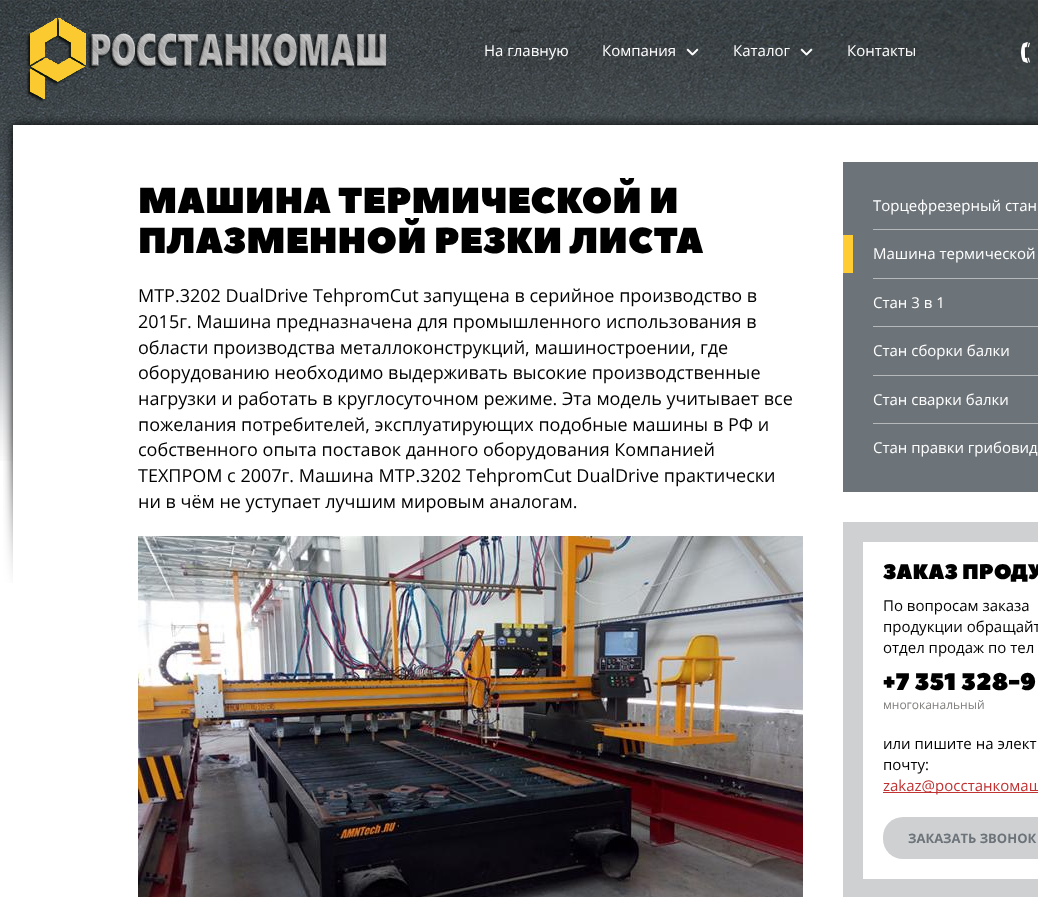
<?xml version="1.0" encoding="UTF-8"?>
<svg xmlns="http://www.w3.org/2000/svg" xmlns:xlink="http://www.w3.org/1999/xlink" width="1038" height="897">
  <rect width="100%" height="100%" fill="#ffffff" />
  <image x="0" y="0" width="1038" height="461" xlink:href="image1.png" />
  <image x="26" y="18" width="360" height="84" xlink:href="image2.png" />
  <image x="686" y="48" width="13" height="8" xlink:href="image3.png" />
  <image x="800" y="48" width="13" height="8" xlink:href="image4.png" />
  <image x="1021" y="42" width="9" height="21" xlink:href="image5.png" />
  <image x="3" y="116" width="1035" height="467" xlink:href="image6.png" />
  <image x="138" y="536" width="665" height="361" xlink:href="image7.png" />
  <rect x="843" y="162" width="195" height="330" fill="#6c7379" />
  <rect x="873" y="229" width="165" height="1" fill="#b6b9bc" />
  <rect x="843" y="235" width="10" height="38" fill="#ffcc33" />
  <rect x="873" y="278" width="165" height="1" fill="#b6b9bc" />
  <rect x="873" y="326" width="165" height="1" fill="#b6b9bc" />
  <rect x="873" y="375" width="165" height="1" fill="#b6b9bc" />
  <rect x="873" y="423" width="165" height="1" fill="#b6b9bc" />
  <rect x="853" y="532" width="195" height="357" fill="none" stroke="#ced0d2" stroke-width="20" />
  <rect x="883" y="792" width="155" height="1" fill="#c03333" />
  <rect x="883" y="817" width="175" height="42" rx="20" fill="#ced0d2" />
  <text x="484" y="56" style="font-family: Open Sans; font-size: 15px; fill: #ffffff">На главную</text>
  <text x="602" y="56" style="font-family: Open Sans; font-size: 15px; fill: #ffffff">Компания</text>
  <text x="733" y="56" style="font-family: Open Sans; font-size: 15px; fill: #ffffff">Каталог</text>
  <text x="847" y="56" style="font-family: Open Sans; font-size: 15px; fill: #ffffff">Контакты</text>
  <text x="138" y="213" style="font-family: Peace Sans; font-size: 36px; fill: #000000">МАШИНА ТЕРМИЧЕСКОЙ И</text>
  <text x="138" y="253" style="font-family: Peace Sans; font-size: 36px; fill: #000000">ПЛАЗМЕННОЙ РЕЗКИ ЛИСТА</text>
  <text x="138" y="302" style="font-family: Open Sans; font-size: 18px; fill: #000000">МТР.3202 DualDrive TehpromCut запущена в серийное производство в</text>
  <text x="138" y="328" style="font-family: Open Sans; font-size: 18px; fill: #000000">2015г. Машина предназначена для промышленного использования в</text>
  <text x="138" y="354" style="font-family: Open Sans; font-size: 18px; fill: #000000">области производства металлоконструкций, машиностроении, где</text>
  <text x="138" y="379" style="font-family: Open Sans; font-size: 18px; fill: #000000">оборудованию необходимо выдерживать высокие производственные</text>
  <text x="138" y="405" style="font-family: Open Sans; font-size: 18px; fill: #000000">нагрузки и работать в круглосуточном режиме. Эта модель учитывает все</text>
  <text x="138" y="431" style="font-family: Open Sans; font-size: 18px; fill: #000000">пожелания потребителей, эксплуатирующих подобные машины в РФ и</text>
  <text x="138" y="456" style="font-family: Open Sans; font-size: 18px; fill: #000000">собственного опыта поставок данного оборудования Компанией</text>
  <text x="138" y="482" style="font-family: Open Sans; font-size: 18px; fill: #000000">ТЕХПРОМ с 2007г. Машина MТР.3202 TehpromCut DualDrive практически</text>
  <text x="138" y="508" style="font-family: Open Sans; font-size: 18px; fill: #000000">ни в чём не уступает лучшим мировым аналогам.</text>
  <text x="873" y="211" style="font-family: Open Sans; font-size: 15px; fill: #ffffff">Торцефрезерный стан</text>
  <text x="873" y="259" style="font-family: Open Sans; font-size: 15px; fill: #ffffff">Машина термической</text>
  <text x="873" y="308" style="font-family: Open Sans; font-size: 15px; fill: #ffffff">Стан 3 в 1</text>
  <text x="873" y="356" style="font-family: Open Sans; font-size: 15px; fill: #ffffff">Стан сборки балки</text>
  <text x="873" y="405" style="font-family: Open Sans; font-size: 15px; fill: #ffffff">Стан сварки балки</text>
  <text x="873" y="453" style="font-family: Open Sans; font-size: 15px; fill: #ffffff">Стан правки грибовид</text>
  <text x="883" y="579" style="font-family: Peace Sans; font-size: 21px; fill: #000000">ЗАКАЗ ПРОДУ</text>
  <text x="883" y="611" style="font-family: Open Sans; font-size: 15px; fill: #000000">По вопросам заказа</text>
  <text x="883" y="632" style="font-family: Open Sans; font-size: 15px; fill: #000000">продукции обращайт</text>
  <text x="883" y="653" style="font-family: Open Sans; font-size: 15px; fill: #000000">отдел продаж по тел</text>
  <text x="883" y="690" style="font-family: Peace Sans; font-size: 24px; fill: #000000">+7 351 328-9</text>
  <text x="883" y="709" style="font-family: Open Sans; font-size: 12px; fill: #7f7e7c">многоканальный</text>
  <text x="883" y="749" style="font-family: Open Sans; font-size: 15px; fill: #000000">или пишите на элект</text>
  <text x="883" y="770" style="font-family: Open Sans; font-size: 15px; fill: #000000">почту:</text>
  <text x="883" y="791" style="font-family: Open Sans; font-size: 15px; fill: #c03333">zakaz@росстанкомаш</text>
  <text x="908" y="843" style="font-family: Open Sans; font-size: 13px; font-weight: bold; fill: #6c7379">ЗАКАЗАТЬ ЗВОНОК</text>
</svg>
